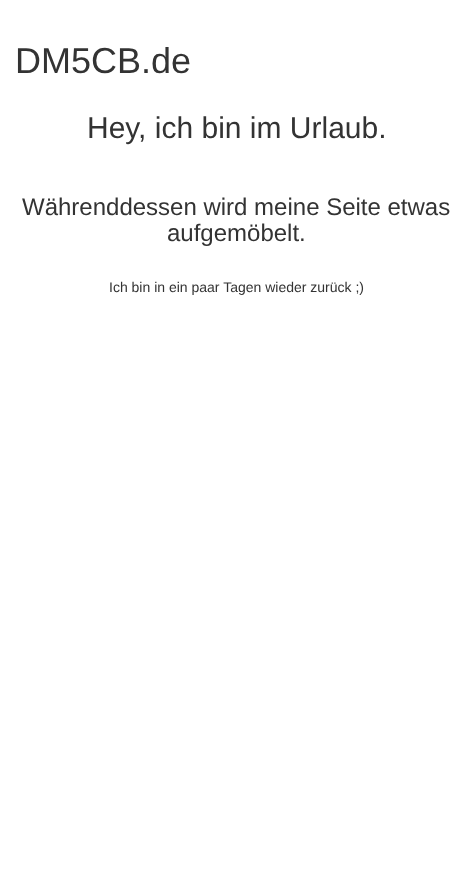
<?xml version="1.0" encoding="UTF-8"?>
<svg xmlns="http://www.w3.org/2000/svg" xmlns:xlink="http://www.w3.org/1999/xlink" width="473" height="870">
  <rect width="100%" height="100%" fill="#ffffff" />
  <text x="15" y="73" style="font-family: Liberation Sans; font-size: 36px; fill: #333333">DM5CB.de</text>
  <text x="87" y="138" style="font-family: Liberation Sans; font-size: 30px; fill: #333333">Hey, ich bin im Urlaub.</text>
  <text x="22" y="215" style="font-family: Liberation Sans; font-size: 24px; fill: #333333">Währenddessen wird meine Seite etwas</text>
  <text x="167" y="241" style="font-family: Liberation Sans; font-size: 24px; fill: #333333">aufgemöbelt.</text>
  <text x="109" y="292" style="font-family: Liberation Sans; font-size: 14px; fill: #333333">Ich bin in ein paar Tagen wieder zurück ;)</text>
</svg>
